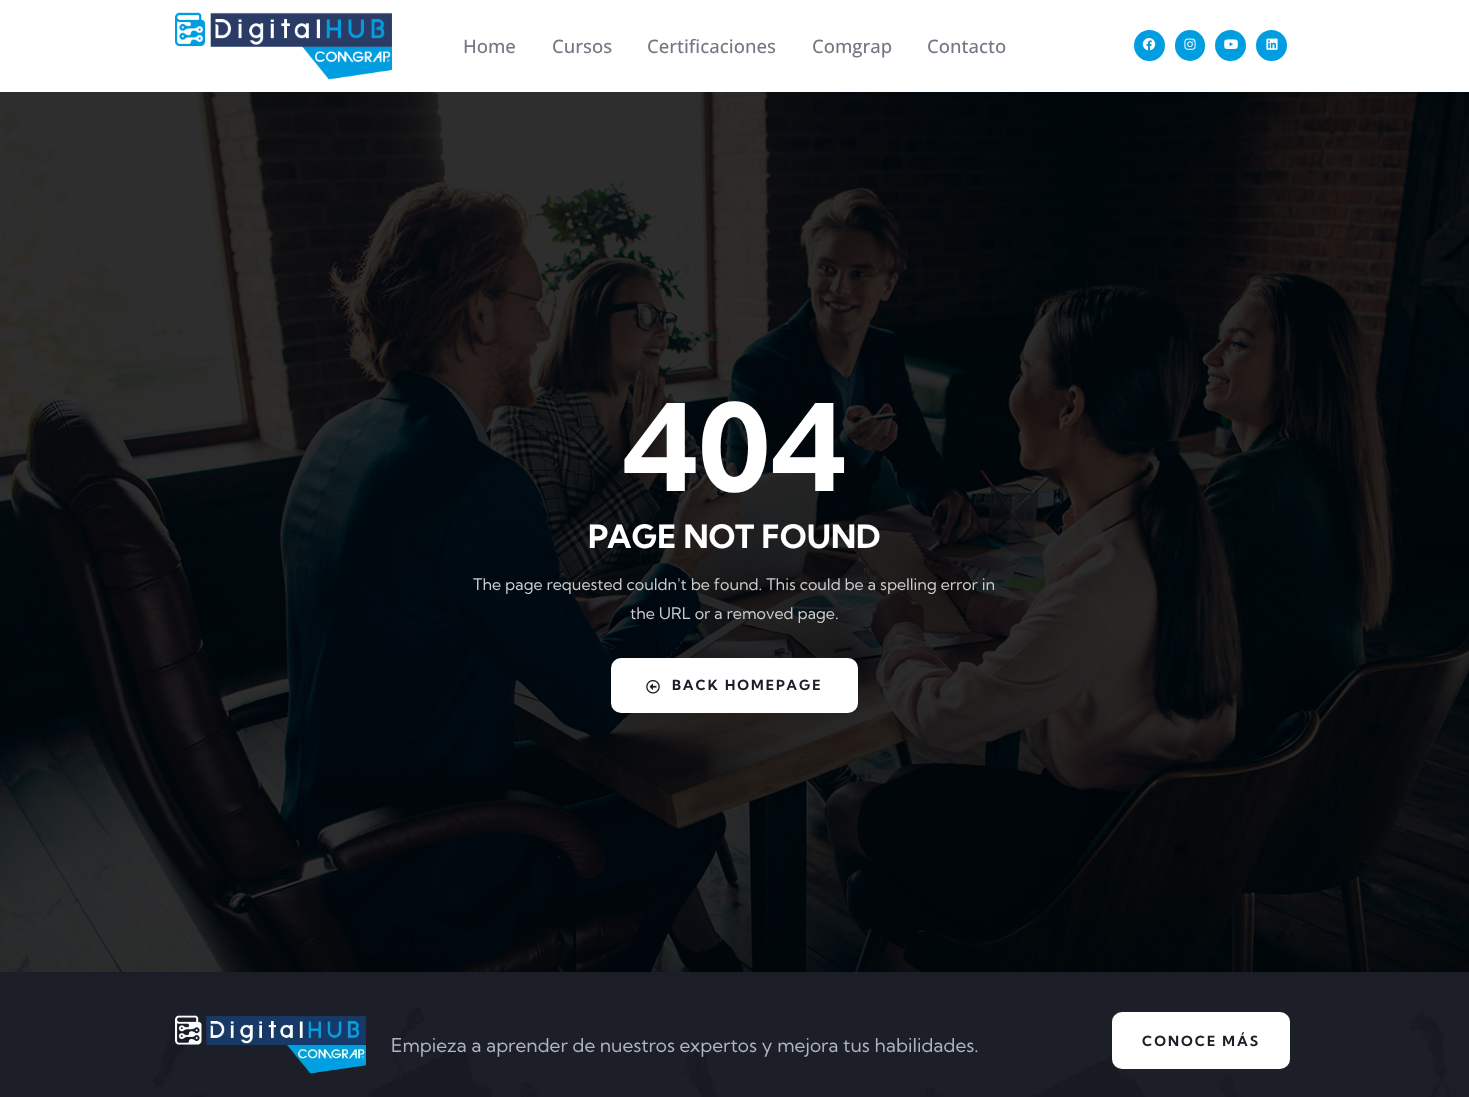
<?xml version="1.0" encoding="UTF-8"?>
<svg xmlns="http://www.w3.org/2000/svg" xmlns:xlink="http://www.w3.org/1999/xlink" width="1469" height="1097">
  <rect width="100%" height="100%" fill="#ffffff" />
  <image x="175" y="12" width="217" height="68" xlink:href="image1.png" />
  <circle cx="1149.5" cy="45.5" r="15.5" fill="#009de0" />
  <image x="1142" y="38" width="14" height="13" xlink:href="image2.png" />
  <rect x="1175" y="30" width="30" height="31" rx="15" fill="#009de0" />
  <image x="1184" y="38" width="12" height="12" xlink:href="image3.png" />
  <circle cx="1230.5" cy="45.5" r="15.5" fill="#009de0" />
  <image x="1224" y="39" width="14" height="10" xlink:href="image4.png" />
  <circle cx="1271.5" cy="45.5" r="15.5" fill="#009de0" />
  <image x="1266" y="38" width="12" height="12" xlink:href="image5.png" />
  <image x="0" y="92" width="1469" height="880" xlink:href="image6.png" />
  <rect x="611" y="658" width="247" height="55" rx="10" fill="#ffffff" />
  <image x="646" y="680" width="14" height="14" xlink:href="image7.png" />
  <rect y="972" width="1469" height="125" fill="#1c1e27" />
  <image x="153" y="1007" width="1296" height="90" xlink:href="image8.png" />
  <image x="175" y="1015" width="191" height="59" xlink:href="image9.png" />
  <rect x="1112" y="1012" width="178" height="57" rx="10" fill="#ffffff" />
  <text x="463" y="53" style="font-family: Open Sans; font-size: 18.5px; font-weight: 500; fill: #757783">Home</text>
  <text x="552" y="53" style="font-family: Open Sans; font-size: 18.5px; font-weight: 500; fill: #757783">Cursos</text>
  <text x="647" y="53" style="font-family: Open Sans; font-size: 18.5px; font-weight: 500; fill: #757783">Certificaciones</text>
  <text x="812" y="53" style="font-family: Open Sans; font-size: 18.5px; font-weight: 500; fill: #757783">Comgrap</text>
  <text x="927" y="53" style="font-family: Open Sans; font-size: 18.5px; font-weight: 500; fill: #757783">Contacto</text>
  <text x="622" y="491" style="font-family: Kumbh Sans; font-size: 120px; font-weight: bold; fill: #ffffff">404</text>
  <text x="588" y="548" style="font-family: Kumbh Sans; font-size: 32px; font-weight: bold; fill: #ffffff">PAGE NOT FOUND</text>
  <text x="473" y="590" style="font-family: Kumbh Sans; font-size: 16px; fill: #cccccc">The page requested couldn't be found. This could be a spelling error in</text>
  <text x="630" y="619" style="font-family: Kumbh Sans; font-size: 16px; fill: #cccccc">the URL or a removed page.</text>
  <text x="672" y="690" style="font-family: Kumbh Sans; font-size: 14px; font-weight: bold; letter-spacing: 2px; fill: #1c1e27">BACK HOMEPAGE</text>
  <text x="391" y="1052" style="font-family: Kumbh Sans; font-size: 19px; fill: #aeb2c2">Empieza a aprender de nuestros expertos y mejora tus habilidades.</text>
  <text x="1142" y="1046" style="font-family: Kumbh Sans; font-size: 14px; font-weight: bold; letter-spacing: 2px; fill: #1c1e27">CONOCE MÁS</text>
</svg>
